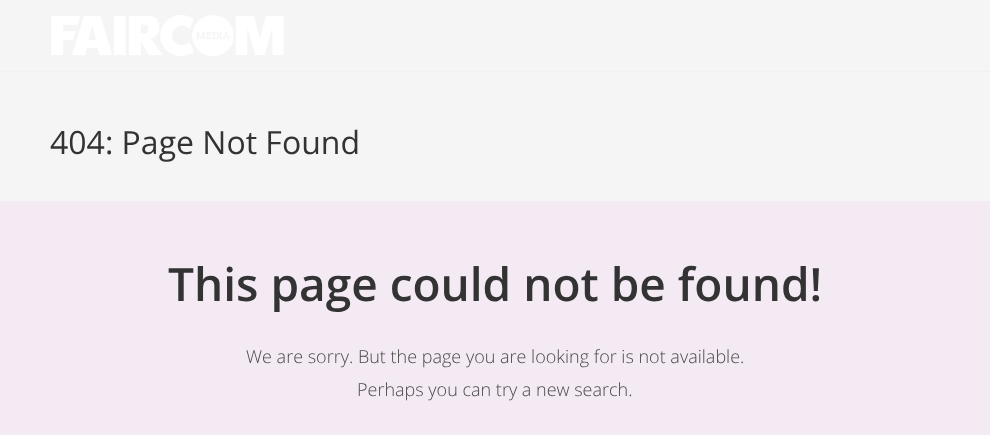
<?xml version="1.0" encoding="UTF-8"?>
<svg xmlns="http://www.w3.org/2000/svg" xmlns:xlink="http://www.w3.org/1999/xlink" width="990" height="435">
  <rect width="100%" height="100%" fill="#f4eaf4" />
  <rect width="990" height="201" fill="#f5f5f5" />
  <rect y="71" width="990" height="1" fill="#f1f1f1" />
  <image x="51" y="15" width="233" height="41" xlink:href="image1.png" />
  <text x="50" y="154" style="font-family: Open Sans; font-size: 32px; fill: #333333">404: Page Not Found</text>
  <text x="168" y="301" style="font-family: Open Sans; font-size: 46px; font-weight: 600; fill: #333333">This page could not be found!</text>
  <text x="246" y="363" style="font-family: Open Sans; font-size: 18px; font-weight: 300; fill: #4a4a4a">We are sorry. But the page you are looking for is not available.</text>
  <text x="357" y="396" style="font-family: Open Sans; font-size: 18px; font-weight: 300; fill: #4a4a4a">Perhaps you can try a new search.</text>
</svg>
